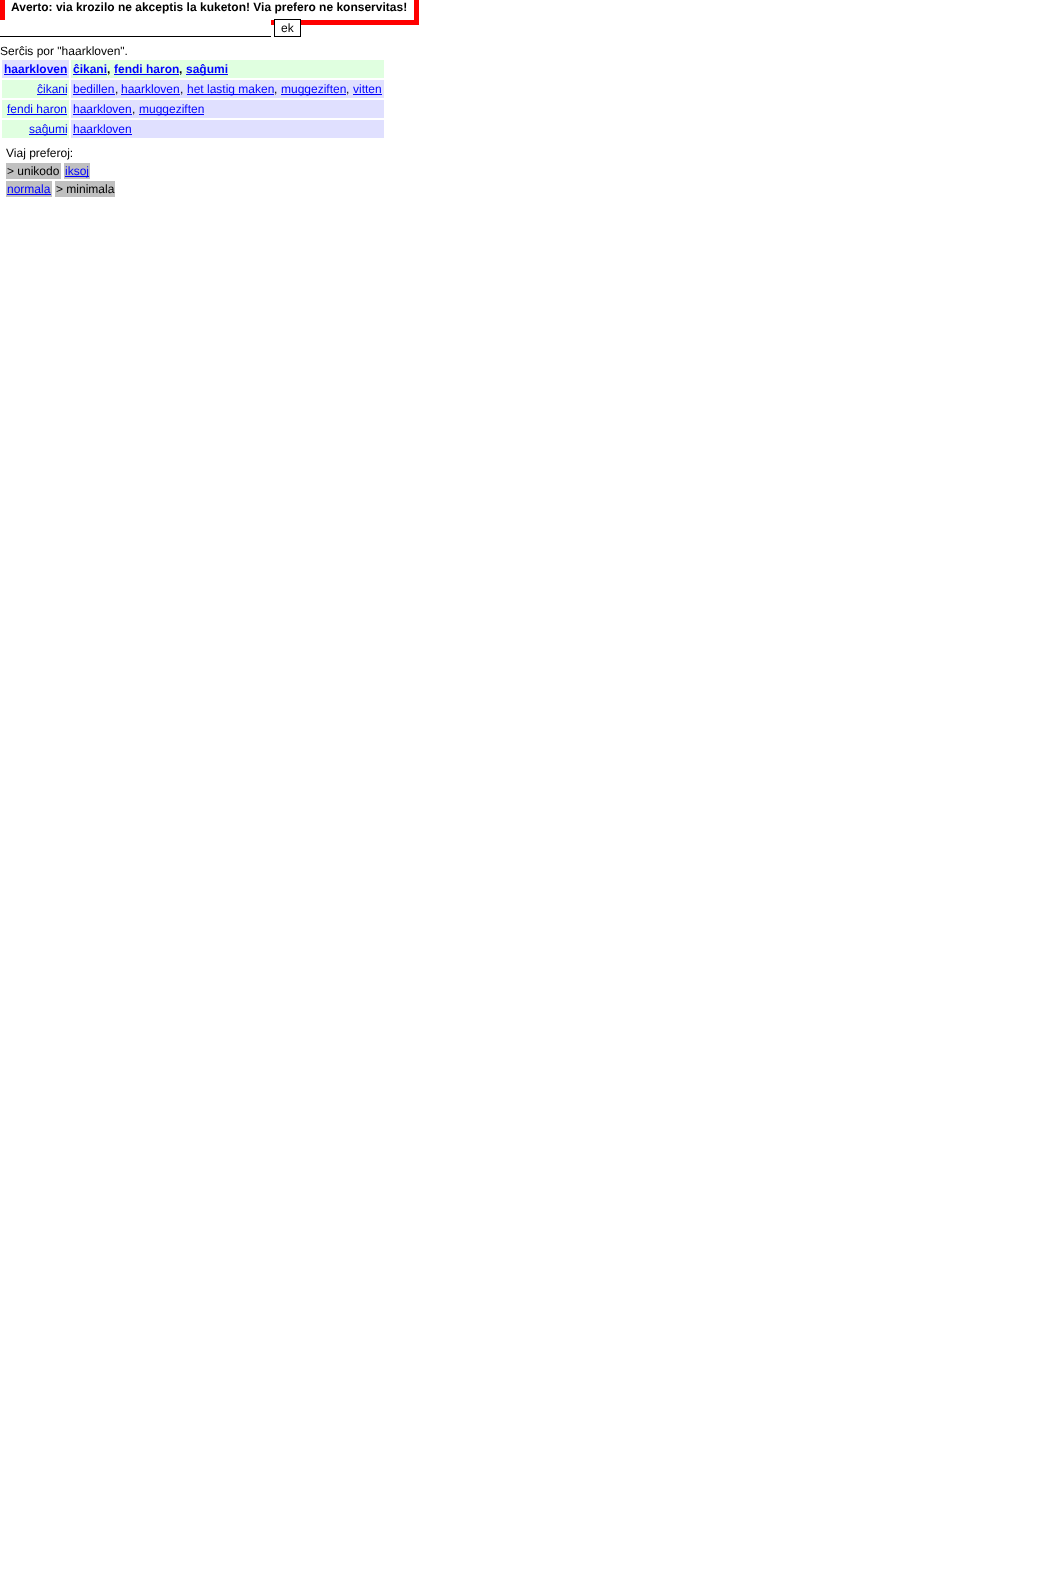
<?xml version="1.0" encoding="UTF-8"?>
<svg xmlns="http://www.w3.org/2000/svg" xmlns:xlink="http://www.w3.org/1999/xlink" width="1062" height="1570">
  <rect width="100%" height="100%" fill="#ffffff" />
  <rect x="2.5" y="-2.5" width="414" height="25" fill="none" stroke="#ff0000" stroke-width="5" />
  <rect y="20" width="271" height="5" fill="#ffffff" />
  <rect y="36" width="271" height="1" fill="#000000" />
  <rect x="275" y="20" width="25" height="5" fill="#ffffff" />
  <rect x="274.5" y="19.5" width="26" height="17" fill="none" stroke="#000000" />
  <rect x="2" y="60" width="67" height="18" fill="#e0e0ff" />
  <rect x="4" y="74" width="63" height="1" fill="#0000ff" />
  <rect x="71" y="60" width="313" height="18" fill="#e0ffe0" />
  <rect x="73" y="74" width="34" height="1" fill="#0000ff" />
  <rect x="114" y="74" width="65" height="1" fill="#0000ff" />
  <rect x="186" y="74" width="42" height="1" fill="#0000ff" />
  <rect x="2" y="80" width="67" height="18" fill="#e0ffe0" />
  <rect x="37" y="94" width="30" height="1" fill="#0000ff" />
  <rect x="71" y="80" width="313" height="18" fill="#e0e0ff" />
  <rect x="73" y="94" width="42" height="1" fill="#0000ff" />
  <rect x="121" y="94" width="59" height="1" fill="#0000ff" />
  <rect x="187" y="94" width="87" height="1" fill="#0000ff" />
  <rect x="281" y="94" width="65" height="1" fill="#0000ff" />
  <rect x="353" y="94" width="29" height="1" fill="#0000ff" />
  <rect x="2" y="100" width="67" height="18" fill="#e0ffe0" />
  <rect x="7" y="114" width="60" height="1" fill="#0000ff" />
  <rect x="71" y="100" width="313" height="18" fill="#e0e0ff" />
  <rect x="73" y="114" width="59" height="1" fill="#0000ff" />
  <rect x="139" y="114" width="65" height="1" fill="#0000ff" />
  <rect x="2" y="120" width="67" height="18" fill="#e0ffe0" />
  <rect x="29" y="134" width="38" height="1" fill="#0000ff" />
  <rect x="71" y="120" width="313" height="18" fill="#e0e0ff" />
  <rect x="73" y="134" width="59" height="1" fill="#0000ff" />
  <rect x="6" y="163" width="55" height="16" fill="#c0c0c0" />
  <rect x="64" y="163" width="26" height="16" fill="#c0c0c0" />
  <rect x="65" y="176" width="24" height="1" fill="#0000ff" />
  <rect x="6" y="181" width="46" height="16" fill="#c0c0c0" />
  <rect x="7" y="194" width="44" height="1" fill="#0000ff" />
  <rect x="55" y="181" width="60" height="16" fill="#c0c0c0" />
  <text x="11" y="11" style="font-family: Liberation Sans; font-size: 12px; font-weight: bold; fill: #000000">Averto: via krozilo ne akceptis la kuketon! Via prefero ne konservitas!</text>
  <text x="281" y="32" style="font-family: Liberation Sans; font-size: 12px; fill: #000000">ek</text>
  <text x="0" y="55" style="font-family: Liberation Sans; font-size: 12px; fill: #000000">Serĉis por "haarkloven".</text>
  <text x="4" y="73" style="font-family: Liberation Sans; font-size: 12px; font-weight: bold; fill: #0000ff">haarkloven</text>
  <text x="73" y="73" style="font-family: Liberation Sans; font-size: 12px; font-weight: bold; fill: #0000ff">ĉikani</text>
  <text x="107" y="73" style="font-family: Liberation Sans; font-size: 12px; font-weight: bold; fill: #000000">,</text>
  <text x="114" y="73" style="font-family: Liberation Sans; font-size: 12px; font-weight: bold; fill: #0000ff">fendi haron</text>
  <text x="179" y="73" style="font-family: Liberation Sans; font-size: 12px; font-weight: bold; fill: #000000">,</text>
  <text x="186" y="73" style="font-family: Liberation Sans; font-size: 12px; font-weight: bold; fill: #0000ff">saĝumi</text>
  <text x="37" y="93" style="font-family: Liberation Sans; font-size: 12px; fill: #0000ff">ĉikani</text>
  <text x="73" y="93" style="font-family: Liberation Sans; font-size: 12px; fill: #0000ff">bedillen</text>
  <text x="115" y="93" style="font-family: Liberation Sans; font-size: 12px; fill: #000000">,</text>
  <text x="121" y="93" style="font-family: Liberation Sans; font-size: 12px; fill: #0000ff">haarkloven</text>
  <text x="180" y="93" style="font-family: Liberation Sans; font-size: 12px; fill: #000000">,</text>
  <text x="187" y="93" style="font-family: Liberation Sans; font-size: 12px; fill: #0000ff">het lastig maken</text>
  <text x="274" y="93" style="font-family: Liberation Sans; font-size: 12px; fill: #000000">,</text>
  <text x="281" y="93" style="font-family: Liberation Sans; font-size: 12px; fill: #0000ff">muggeziften</text>
  <text x="346" y="93" style="font-family: Liberation Sans; font-size: 12px; fill: #000000">,</text>
  <text x="353" y="93" style="font-family: Liberation Sans; font-size: 12px; fill: #0000ff">vitten</text>
  <text x="7" y="113" style="font-family: Liberation Sans; font-size: 12px; fill: #0000ff">fendi haron</text>
  <text x="73" y="113" style="font-family: Liberation Sans; font-size: 12px; fill: #0000ff">haarkloven</text>
  <text x="132" y="113" style="font-family: Liberation Sans; font-size: 12px; fill: #000000">,</text>
  <text x="139" y="113" style="font-family: Liberation Sans; font-size: 12px; fill: #0000ff">muggeziften</text>
  <text x="29" y="133" style="font-family: Liberation Sans; font-size: 12px; fill: #0000ff">saĝumi</text>
  <text x="73" y="133" style="font-family: Liberation Sans; font-size: 12px; fill: #0000ff">haarkloven</text>
  <text x="6" y="157" style="font-family: Liberation Sans; font-size: 12px; fill: #000000">Viaj preferoj:</text>
  <text x="7" y="175" style="font-family: Liberation Sans; font-size: 12px; fill: #000000">&gt; unikodo</text>
  <text x="65" y="175" style="font-family: Liberation Sans; font-size: 12px; fill: #0000ff">iksoj</text>
  <text x="7" y="193" style="font-family: Liberation Sans; font-size: 12px; fill: #0000ff">normala</text>
  <text x="56" y="193" style="font-family: Liberation Sans; font-size: 12px; fill: #000000">&gt; minimala</text>
</svg>
